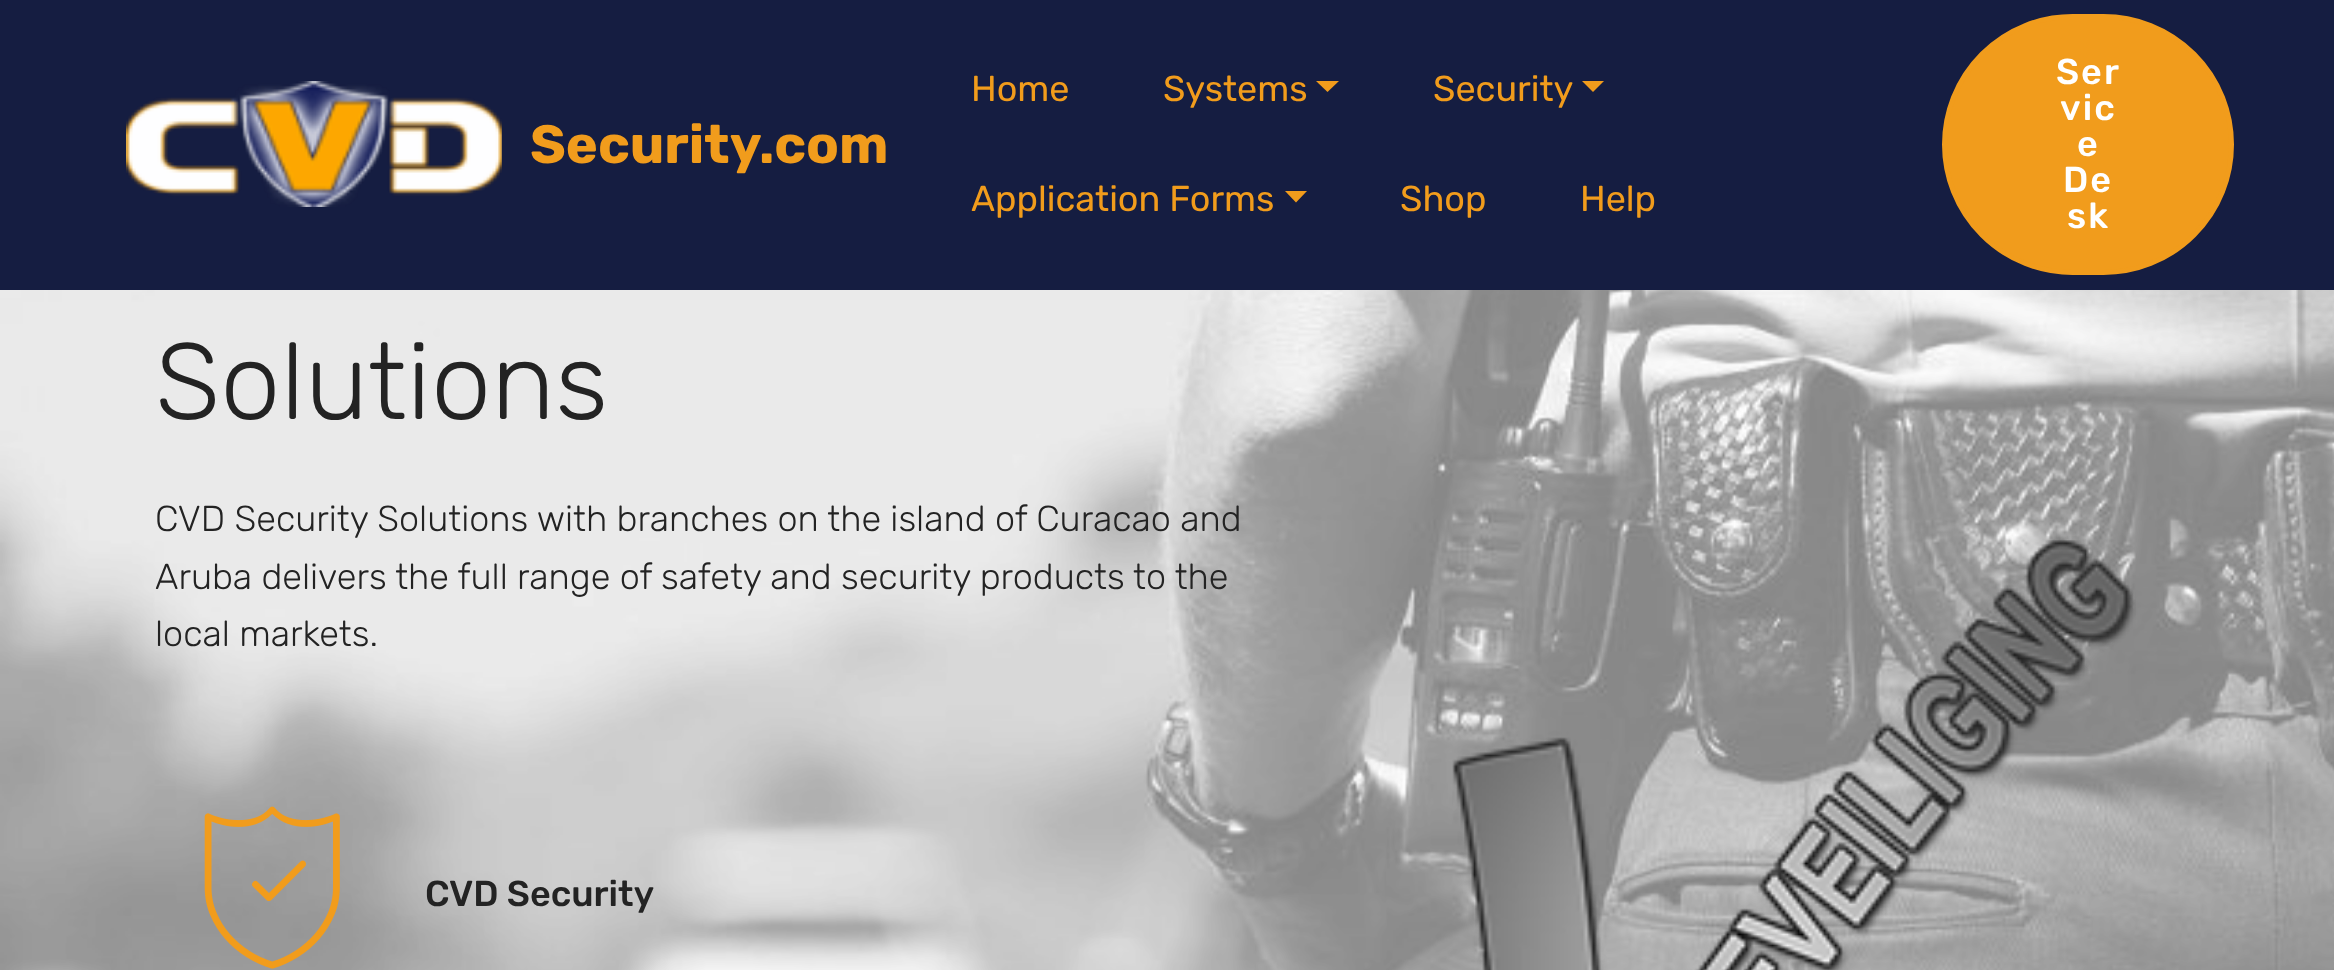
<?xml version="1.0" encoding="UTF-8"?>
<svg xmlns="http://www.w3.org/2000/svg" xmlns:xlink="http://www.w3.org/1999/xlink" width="2334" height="970">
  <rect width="100%" height="100%" fill="#ffffff" />
  <rect width="2334" height="290" fill="#151d41" />
  <image x="126" y="81" width="376" height="126" xlink:href="image1.png" />
  <path d="M 1316 81 h 23 l -11.5 11 z" fill="#f19c1c" />
  <path d="M 1582 81 h 22 l -11 11 z" fill="#f19c1c" />
  <path d="M 1285 191 h 22 l -11 11.5 z" fill="#f19c1c" />
  <rect x="1944.5" y="16.5" width="287" height="256" rx="128" fill="#f19c1c" stroke="#f19c1c" stroke-width="5" />
  <image x="0" y="290" width="2334" height="680" xlink:href="image2.png" />
  <image x="204" y="806" width="136" height="163" xlink:href="image3.png" />
  <image x="1452" y="536" width="684" height="434" xlink:href="image4.png" />
  <text x="530" y="163" style="font-family: Rubik; font-size: 54px; font-weight: bold; fill: #f19c1c">Security.com</text>
  <text x="971" y="101" style="font-family: Rubik; font-size: 36px; fill: #f19c1c">Home</text>
  <text x="1163" y="101" style="font-family: Rubik; font-size: 36px; fill: #f19c1c">Systems</text>
  <text x="1433" y="101" style="font-family: Rubik; font-size: 36px; fill: #f19c1c">Security</text>
  <text x="971" y="211" style="font-family: Rubik; font-size: 36px; fill: #f19c1c">Application Forms</text>
  <text x="1400" y="211" style="font-family: Rubik; font-size: 36px; fill: #f19c1c">Shop</text>
  <text x="1580" y="211" style="font-family: Rubik; font-size: 36px; fill: #f19c1c">Help</text>
  <text x="2056" y="84" style="font-family: Rubik; font-size: 36px; font-weight: 500; letter-spacing: 2px; fill: #ffffff">Ser</text>
  <text x="2060" y="120" style="font-family: Rubik; font-size: 36px; font-weight: 500; letter-spacing: 2px; fill: #ffffff">vic</text>
  <text x="2077" y="156" style="font-family: Rubik; font-size: 36px; font-weight: 500; letter-spacing: 2px; fill: #ffffff">e</text>
  <text x="2063" y="192" style="font-family: Rubik; font-size: 36px; font-weight: 500; letter-spacing: 2px; fill: #ffffff">De</text>
  <text x="2067" y="228" style="font-family: Rubik; font-size: 36px; font-weight: 500; letter-spacing: 2px; fill: #ffffff">sk</text>
  <text x="155" y="419" style="font-family: Rubik; font-size: 108px; font-weight: 300; fill: #232323">Solutions</text>
  <text x="155" y="531" style="font-family: Rubik; font-size: 36px; font-weight: 300; fill: #232323">CVD Security Solutions with branches on the island of Curacao and</text>
  <text x="155" y="589" style="font-family: Rubik; font-size: 36px; font-weight: 300; fill: #232323">Aruba delivers the full range of safety and security products to the</text>
  <text x="155" y="646" style="font-family: Rubik; font-size: 36px; font-weight: 300; fill: #232323">local markets.</text>
  <text x="425" y="906" style="font-family: Rubik; font-size: 36px; font-weight: 500; fill: #232323">CVD Security</text>
</svg>
